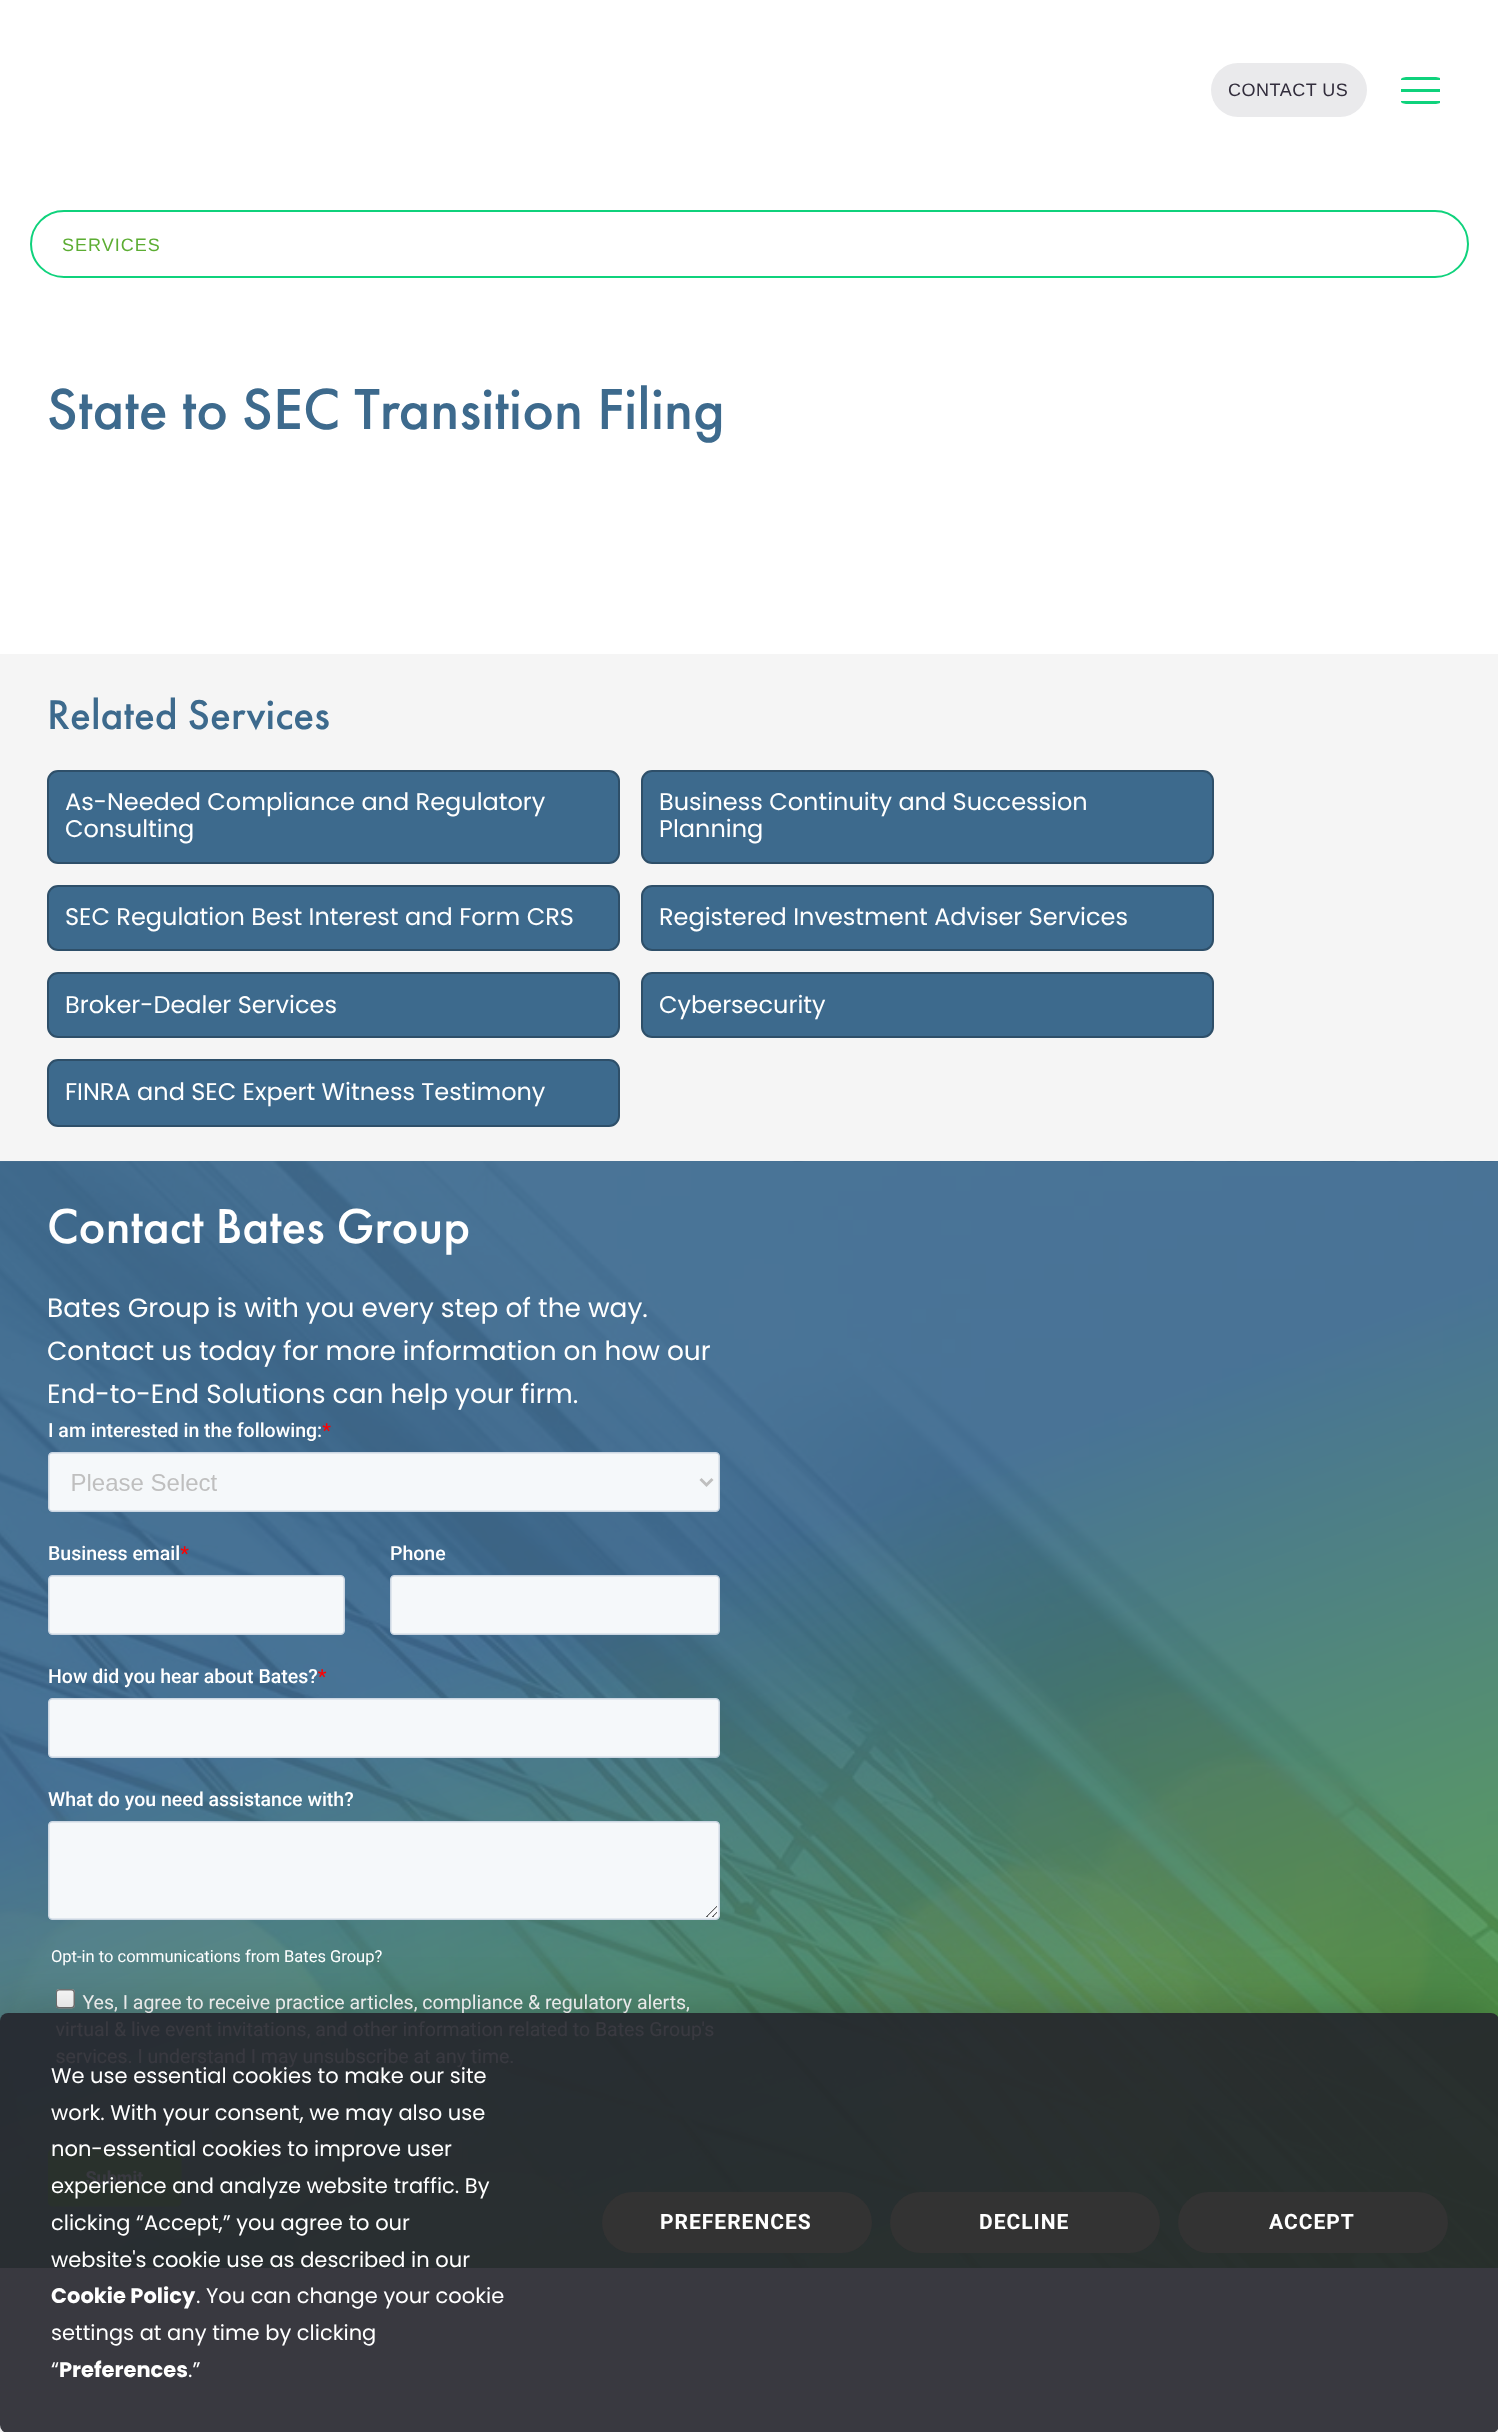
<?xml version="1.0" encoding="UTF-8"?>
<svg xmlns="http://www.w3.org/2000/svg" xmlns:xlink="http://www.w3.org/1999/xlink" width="1498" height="2432">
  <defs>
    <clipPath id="clip1"><rect x="1397" y="77" width="48" height="27" rx="9" /></clipPath>
    <clipPath id="clip2"><path d="M 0 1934 h 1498 v 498 h -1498 z m 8 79 h 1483 c 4.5 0 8 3.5 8 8 v 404 c 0 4.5 -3.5 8 -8 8 h -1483 c -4.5 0 -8 -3.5 -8 -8 v -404 c 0 -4.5 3.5 -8 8 -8 z" clip-rule="evenodd" /></clipPath>
  </defs>
  <rect width="100%" height="100%" fill="#ffffff" />
  <rect x="1211" y="63" width="156" height="54" rx="27" fill="#eaeaec" />
  <rect x="1401" y="89" width="39" height="3" fill="#0fd27c" />
  <g clip-path="url(#clip1)">
    <rect x="1401" y="77" width="39" height="3" fill="#0fd27c" />
    <rect x="1401" y="101" width="39" height="3" fill="#0fd27c" />
  </g>
  <rect x="31" y="211" width="1437" height="66" rx="33" fill="none" stroke="#0fd27c" stroke-width="2" />
  <rect y="654" width="1498" height="507" fill="#f5f5f5" />
  <rect x="48" y="771" width="571" height="92" rx="10" fill="#3d6a8d" stroke="#2e4f69" stroke-width="2" />
  <rect x="642" y="771" width="571" height="92" rx="10" fill="#3d6a8d" stroke="#2e4f69" stroke-width="2" />
  <rect x="48" y="886" width="571" height="64" rx="10" fill="#3d6a8d" stroke="#2e4f69" stroke-width="2" />
  <rect x="642" y="886" width="571" height="64" rx="10" fill="#3d6a8d" stroke="#2e4f69" stroke-width="2" />
  <rect x="48" y="973" width="571" height="64" rx="10" fill="#3d6a8d" stroke="#2e4f69" stroke-width="2" />
  <rect x="642" y="973" width="571" height="64" rx="10" fill="#3d6a8d" stroke="#2e4f69" stroke-width="2" />
  <rect x="48" y="1060" width="571" height="66" rx="10" fill="#3d6a8d" stroke="#2e4f69" stroke-width="2" />
  <image x="0" y="1161" width="1498" height="1107" xlink:href="image1.png" />
  <image x="48" y="1422" width="672" height="785" xlink:href="image2.png" />
  <g clip-path="url(#clip2)">
    <rect y="2013" width="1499" height="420" rx="8" fill="#000000" fill-opacity="0.25" filter="blur(26px)" />
  </g>
  <rect y="2013" width="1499" height="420" rx="8" fill="#23232b" fill-opacity="0.9" />
  <rect x="602" y="2192" width="270" height="61" rx="30.5" fill="#333333" />
  <rect x="890" y="2192" width="270" height="61" rx="30.5" fill="#333333" />
  <rect x="1178" y="2192" width="270" height="61" rx="30.5" fill="#333333" />
  <text x="1228" y="96" style="font-family: Liberation Sans; font-size: 18px; letter-spacing: 0.5px; fill: #322d3c">CONTACT US</text>
  <text x="62" y="251" style="font-family: Liberation Sans; font-size: 18px; letter-spacing: 1px; fill: #5cad33">SERVICES</text>
  <text x="47" y="429" style="font-family: Futura PT; font-size: 60px; font-weight: 500; fill: #3d6a8d">State to SEC Transition Filing</text>
  <text x="47" y="729" style="font-family: Futura PT; font-size: 43.25px; font-weight: 500; fill: #3d6a8d">Related Services</text>
  <text x="65" y="810" style="font-family: Poppins; font-size: 24px; fill: #ffffff">As-Needed Compliance and Regulatory</text>
  <text x="65" y="837" style="font-family: Poppins; font-size: 24px; fill: #ffffff">Consulting</text>
  <text x="659" y="810" style="font-family: Poppins; font-size: 24px; fill: #ffffff">Business Continuity and Succession</text>
  <text x="659" y="837" style="font-family: Poppins; font-size: 24px; fill: #ffffff">Planning</text>
  <text x="65" y="925" style="font-family: Poppins; font-size: 24px; fill: #ffffff">SEC Regulation Best Interest and Form CRS</text>
  <text x="659" y="925" style="font-family: Poppins; font-size: 24px; fill: #ffffff">Registered Investment Adviser Services</text>
  <text x="65" y="1013" style="font-family: Poppins; font-size: 24px; fill: #ffffff">Broker-Dealer Services</text>
  <text x="659" y="1013" style="font-family: Poppins; font-size: 24px; fill: #ffffff">Cybersecurity</text>
  <text x="65" y="1100" style="font-family: Poppins; font-size: 24px; fill: #ffffff">FINRA and SEC Expert Witness Testimony</text>
  <text x="47" y="1243" style="font-family: Futura PT; font-size: 51px; font-weight: 500; fill: #ffffff">Contact Bates Group</text>
  <text x="47" y="1317" style="font-family: Poppins; font-size: 26.4px; fill: #ffffff">Bates Group is with you every step of the way.</text>
  <text x="47" y="1360" style="font-family: Poppins; font-size: 26.4px; fill: #ffffff">Contact us today for more information on how our</text>
  <text x="47" y="1403" style="font-family: Poppins; font-size: 26.4px; fill: #ffffff">End-to-End Solutions can help your firm.</text>
  <text x="51" y="2083" style="font-family: Poppins; font-size: 21px; fill: #ffffff">We use essential cookies to make our site</text>
  <text x="51" y="2120" style="font-family: Poppins; font-size: 21px; fill: #ffffff">work. With your consent, we may also use</text>
  <text x="51" y="2156" style="font-family: Poppins; font-size: 21px; fill: #ffffff">non-essential cookies to improve user</text>
  <text x="51" y="2193" style="font-family: Poppins; font-size: 21px; fill: #ffffff">experience and analyze website traffic. By</text>
  <text x="51" y="2230" style="font-family: Poppins; font-size: 21px; fill: #ffffff">clicking “Accept,” you agree to our</text>
  <text x="51" y="2267" style="font-family: Poppins; font-size: 21px; fill: #ffffff">website's cookie use as described in our</text>
  <text x="51" y="2303" style="font-family: Poppins; font-size: 21px; font-weight: bold; fill: #ffffff">Cookie Policy</text>
  <text x="196" y="2303" style="font-family: Poppins; font-size: 21px; fill: #ffffff">. You can change your cookie</text>
  <text x="51" y="2340" style="font-family: Poppins; font-size: 21px; fill: #ffffff">settings at any time by clicking</text>
  <text x="51" y="2377" style="font-family: Poppins; font-size: 21px; fill: #ffffff">“</text>
  <text x="59" y="2377" style="font-family: Poppins; font-size: 21px; font-weight: bold; fill: #ffffff">Preferences</text>
  <text x="188" y="2377" style="font-family: Poppins; font-size: 21px; fill: #ffffff">.”</text>
  <text x="660" y="2229" style="font-family: Roboto; font-size: 21px; font-weight: bold; letter-spacing: 1px; fill: #ffffff">PREFERENCES</text>
  <text x="979" y="2229" style="font-family: Roboto; font-size: 21px; font-weight: bold; letter-spacing: 1px; fill: #ffffff">DECLINE</text>
  <text x="1269" y="2229" style="font-family: Roboto; font-size: 21px; font-weight: bold; letter-spacing: 1px; fill: #ffffff">ACCEPT</text>
</svg>
